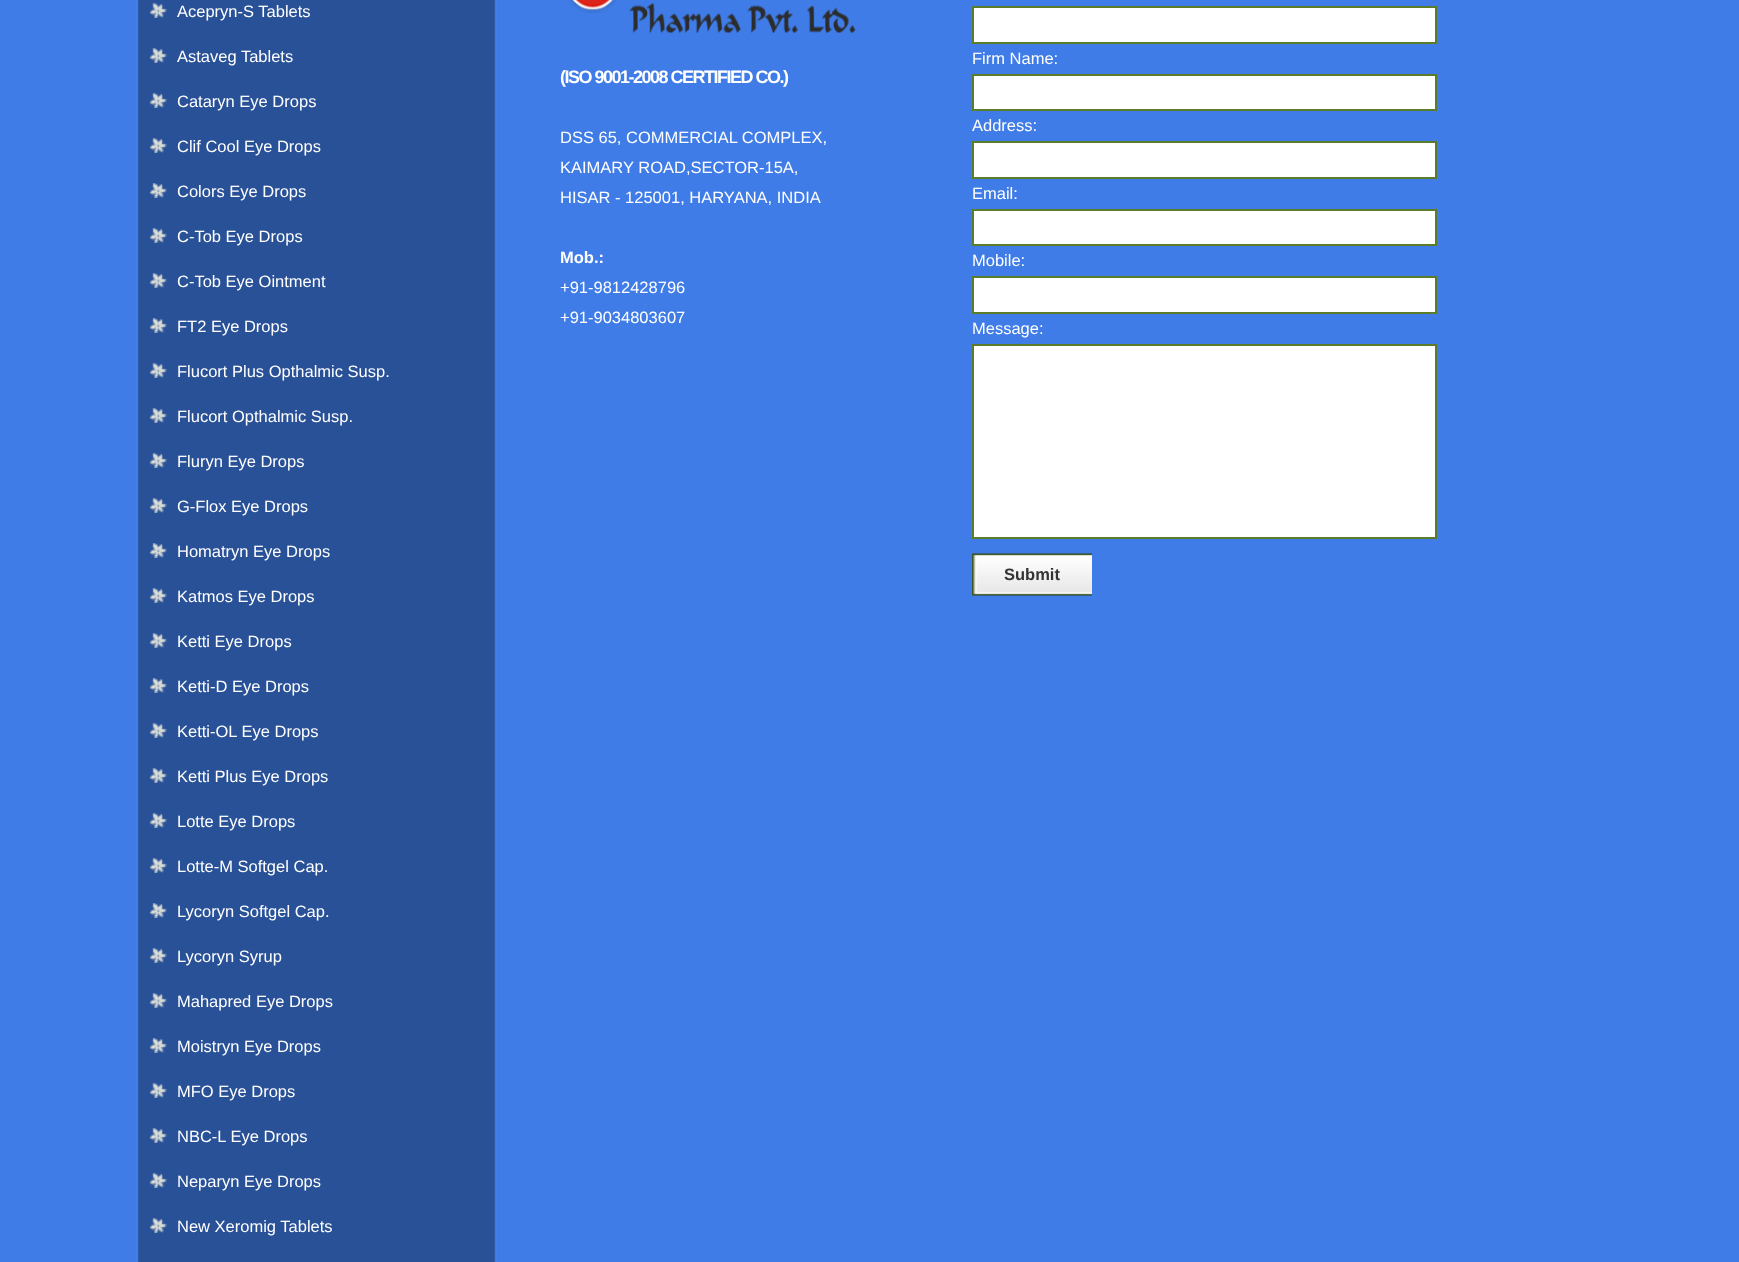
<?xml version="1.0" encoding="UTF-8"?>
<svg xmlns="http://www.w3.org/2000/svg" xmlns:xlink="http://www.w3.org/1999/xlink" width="1739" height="1262">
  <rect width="100%" height="100%" fill="#3f7ce7" />
  <image x="136" y="0" width="361" height="1262" xlink:href="image1.png" />
  <image x="150" y="3" width="17" height="15" xlink:href="image2.png" />
  <image x="150" y="48" width="17" height="15" xlink:href="image2.png" />
  <image x="150" y="93" width="17" height="15" xlink:href="image2.png" />
  <image x="150" y="138" width="17" height="15" xlink:href="image2.png" />
  <image x="150" y="183" width="17" height="15" xlink:href="image2.png" />
  <image x="150" y="228" width="17" height="15" xlink:href="image2.png" />
  <image x="150" y="273" width="17" height="15" xlink:href="image2.png" />
  <image x="150" y="318" width="17" height="15" xlink:href="image2.png" />
  <image x="150" y="363" width="17" height="15" xlink:href="image2.png" />
  <image x="150" y="408" width="17" height="15" xlink:href="image2.png" />
  <image x="150" y="453" width="17" height="15" xlink:href="image2.png" />
  <image x="150" y="498" width="17" height="15" xlink:href="image2.png" />
  <image x="150" y="543" width="17" height="15" xlink:href="image2.png" />
  <image x="150" y="588" width="17" height="15" xlink:href="image2.png" />
  <image x="150" y="633" width="17" height="15" xlink:href="image2.png" />
  <image x="150" y="678" width="17" height="15" xlink:href="image2.png" />
  <image x="150" y="723" width="17" height="15" xlink:href="image2.png" />
  <image x="150" y="768" width="17" height="15" xlink:href="image2.png" />
  <image x="150" y="813" width="17" height="15" xlink:href="image2.png" />
  <image x="150" y="858" width="17" height="15" xlink:href="image2.png" />
  <image x="150" y="903" width="17" height="15" xlink:href="image2.png" />
  <image x="150" y="948" width="17" height="15" xlink:href="image2.png" />
  <image x="150" y="993" width="17" height="15" xlink:href="image2.png" />
  <image x="150" y="1038" width="17" height="15" xlink:href="image2.png" />
  <image x="150" y="1083" width="17" height="15" xlink:href="image2.png" />
  <image x="150" y="1128" width="17" height="15" xlink:href="image2.png" />
  <image x="150" y="1173" width="17" height="15" xlink:href="image2.png" />
  <image x="150" y="1218" width="17" height="15" xlink:href="image2.png" />
  <image x="569" y="0" width="287" height="33" xlink:href="image3.png" />
  <rect x="973" y="7" width="463" height="36" fill="#ffffff" stroke="#5d7c29" stroke-width="2" />
  <rect x="973" y="75" width="463" height="35" fill="#ffffff" stroke="#5d7c29" stroke-width="2" />
  <rect x="973" y="142" width="463" height="36" fill="#ffffff" stroke="#5d7c29" stroke-width="2" />
  <rect x="973" y="210" width="463" height="35" fill="#ffffff" stroke="#5d7c29" stroke-width="2" />
  <rect x="973" y="277" width="463" height="36" fill="#ffffff" stroke="#5d7c29" stroke-width="2" />
  <rect x="973" y="345" width="463" height="193" fill="#ffffff" stroke="#5d7c29" stroke-width="2" />
  <image x="972" y="553" width="120" height="43" xlink:href="image4.png" />
  <text x="177" y="17" style="font-family: Liberation Sans; font-size: 16.5px; fill: #ffffff">Acepryn-S Tablets</text>
  <text x="177" y="62" style="font-family: Liberation Sans; font-size: 16.5px; fill: #ffffff">Astaveg Tablets</text>
  <text x="177" y="107" style="font-family: Liberation Sans; font-size: 16.5px; fill: #ffffff">Cataryn Eye Drops</text>
  <text x="177" y="152" style="font-family: Liberation Sans; font-size: 16.5px; fill: #ffffff">Clif Cool Eye Drops</text>
  <text x="177" y="197" style="font-family: Liberation Sans; font-size: 16.5px; fill: #ffffff">Colors Eye Drops</text>
  <text x="177" y="242" style="font-family: Liberation Sans; font-size: 16.5px; fill: #ffffff">C-Tob Eye Drops</text>
  <text x="177" y="287" style="font-family: Liberation Sans; font-size: 16.5px; fill: #ffffff">C-Tob Eye Ointment</text>
  <text x="177" y="332" style="font-family: Liberation Sans; font-size: 16.5px; fill: #ffffff">FT2 Eye Drops</text>
  <text x="177" y="377" style="font-family: Liberation Sans; font-size: 16.5px; fill: #ffffff">Flucort Plus Opthalmic Susp.</text>
  <text x="177" y="422" style="font-family: Liberation Sans; font-size: 16.5px; fill: #ffffff">Flucort Opthalmic Susp.</text>
  <text x="177" y="467" style="font-family: Liberation Sans; font-size: 16.5px; fill: #ffffff">Fluryn Eye Drops</text>
  <text x="177" y="512" style="font-family: Liberation Sans; font-size: 16.5px; fill: #ffffff">G-Flox Eye Drops</text>
  <text x="177" y="557" style="font-family: Liberation Sans; font-size: 16.5px; fill: #ffffff">Homatryn Eye Drops</text>
  <text x="177" y="602" style="font-family: Liberation Sans; font-size: 16.5px; fill: #ffffff">Katmos Eye Drops</text>
  <text x="177" y="647" style="font-family: Liberation Sans; font-size: 16.5px; fill: #ffffff">Ketti Eye Drops</text>
  <text x="177" y="692" style="font-family: Liberation Sans; font-size: 16.5px; fill: #ffffff">Ketti-D Eye Drops</text>
  <text x="177" y="737" style="font-family: Liberation Sans; font-size: 16.5px; fill: #ffffff">Ketti-OL Eye Drops</text>
  <text x="177" y="782" style="font-family: Liberation Sans; font-size: 16.5px; fill: #ffffff">Ketti Plus Eye Drops</text>
  <text x="177" y="827" style="font-family: Liberation Sans; font-size: 16.5px; fill: #ffffff">Lotte Eye Drops</text>
  <text x="177" y="872" style="font-family: Liberation Sans; font-size: 16.5px; fill: #ffffff">Lotte-M Softgel Cap.</text>
  <text x="177" y="917" style="font-family: Liberation Sans; font-size: 16.5px; fill: #ffffff">Lycoryn Softgel Cap.</text>
  <text x="177" y="962" style="font-family: Liberation Sans; font-size: 16.5px; fill: #ffffff">Lycoryn Syrup</text>
  <text x="177" y="1007" style="font-family: Liberation Sans; font-size: 16.5px; fill: #ffffff">Mahapred Eye Drops</text>
  <text x="177" y="1052" style="font-family: Liberation Sans; font-size: 16.5px; fill: #ffffff">Moistryn Eye Drops</text>
  <text x="177" y="1097" style="font-family: Liberation Sans; font-size: 16.5px; fill: #ffffff">MFO Eye Drops</text>
  <text x="177" y="1142" style="font-family: Liberation Sans; font-size: 16.5px; fill: #ffffff">NBC-L Eye Drops</text>
  <text x="177" y="1187" style="font-family: Liberation Sans; font-size: 16.5px; fill: #ffffff">Neparyn Eye Drops</text>
  <text x="177" y="1232" style="font-family: Liberation Sans; font-size: 16.5px; fill: #ffffff">New Xeromig Tablets</text>
  <text x="560" y="83" style="font-family: Liberation Sans; font-size: 18px; font-weight: bold; letter-spacing: -1.5px; fill: #ffffff">(ISO 9001-2008 CERTIFIED CO.)</text>
  <text x="560" y="143" style="font-family: Liberation Sans; font-size: 16.5px; fill: #ffffff">DSS 65, COMMERCIAL COMPLEX,</text>
  <text x="560" y="173" style="font-family: Liberation Sans; font-size: 16.5px; fill: #ffffff">KAIMARY ROAD,SECTOR-15A,</text>
  <text x="560" y="203" style="font-family: Liberation Sans; font-size: 16.5px; fill: #ffffff">HISAR - 125001, HARYANA, INDIA</text>
  <text x="560" y="263" style="font-family: Liberation Sans; font-size: 16.5px; font-weight: bold; fill: #ffffff">Mob.:</text>
  <text x="560" y="293" style="font-family: Liberation Sans; font-size: 16.5px; fill: #ffffff">+91-9812428796</text>
  <text x="560" y="323" style="font-family: Liberation Sans; font-size: 16.5px; fill: #ffffff">+91-9034803607</text>
  <text x="972" y="64" style="font-family: Liberation Sans; font-size: 16.5px; fill: #ffffff">Firm Name:</text>
  <text x="972" y="131" style="font-family: Liberation Sans; font-size: 16.5px; fill: #ffffff">Address:</text>
  <text x="972" y="199" style="font-family: Liberation Sans; font-size: 16.5px; fill: #ffffff">Email:</text>
  <text x="972" y="266" style="font-family: Liberation Sans; font-size: 16.5px; fill: #ffffff">Mobile:</text>
  <text x="972" y="334" style="font-family: Liberation Sans; font-size: 16.5px; fill: #ffffff">Message:</text>
  <text x="1004" y="580" style="font-family: Liberation Sans; font-size: 16.5px; font-weight: bold; fill: #333333">Submit</text>
</svg>
